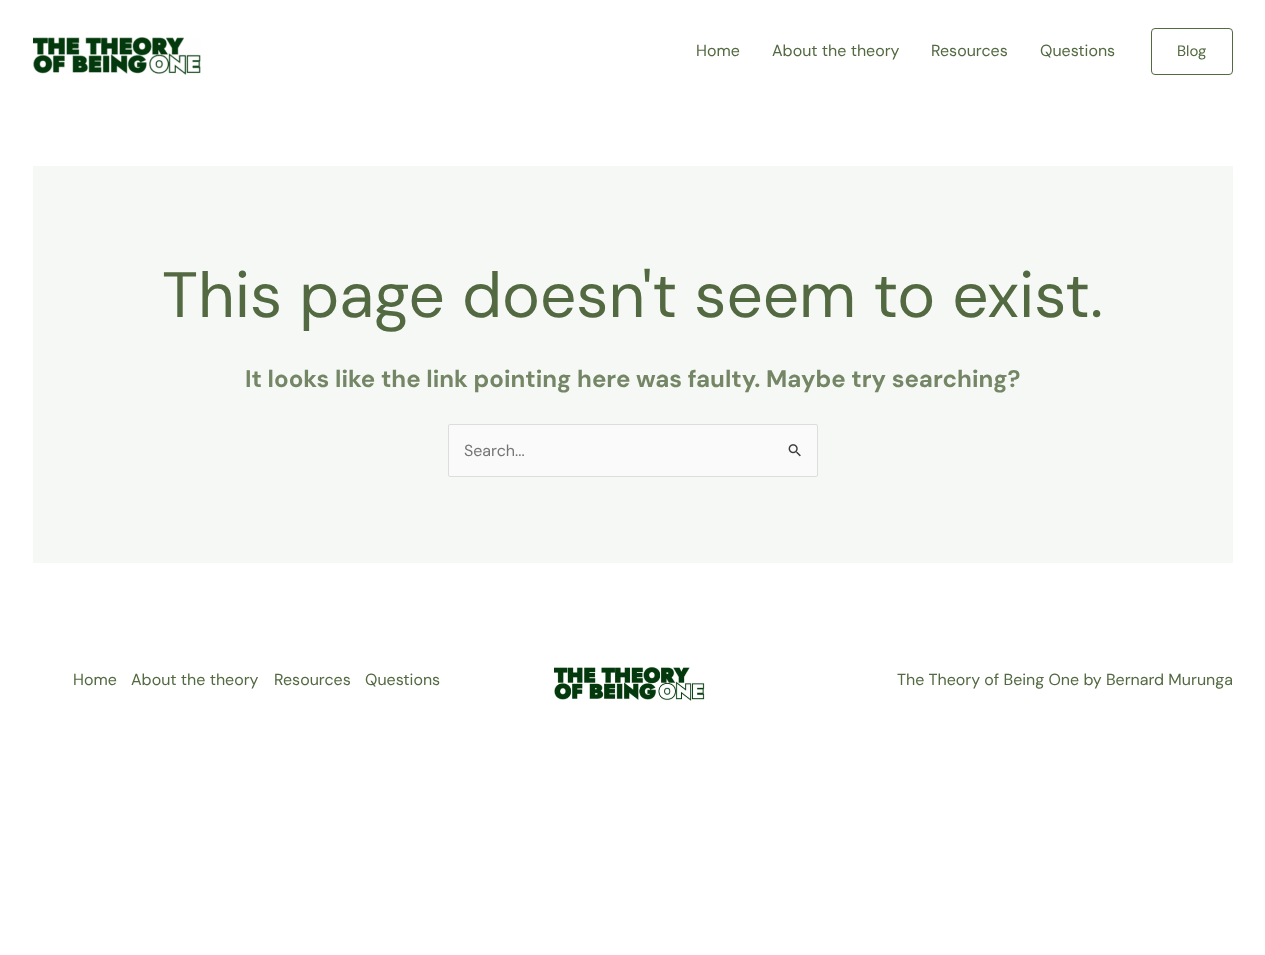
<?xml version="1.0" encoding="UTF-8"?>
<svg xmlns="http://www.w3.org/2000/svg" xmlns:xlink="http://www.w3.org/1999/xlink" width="1265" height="955">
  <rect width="100%" height="100%" fill="#ffffff" />
  <image x="33" y="37" width="168" height="38" xlink:href="image1.png" />
  <rect x="1151.5" y="28.5" width="81" height="46" rx="3.5" fill="none" stroke="#536942" />
  <rect x="33" y="166" width="1200" height="397" fill="#f6f8f5" />
  <rect x="448.5" y="424.5" width="369" height="52" rx="1.5" fill="#fafafa" stroke="#dddddd" />
  <image x="788" y="444" width="13" height="13" xlink:href="image2.png" />
  <image x="554" y="667" width="151" height="34" xlink:href="image3.png" />
  <text x="696" y="56" style="font-family: DM Sans; font-size: 16px; fill: #536941">Home</text>
  <text x="772" y="56" style="font-family: DM Sans; font-size: 16px; fill: #536941">About the theory</text>
  <text x="931" y="56" style="font-family: DM Sans; font-size: 16px; fill: #536941">Resources</text>
  <text x="1040" y="56" style="font-family: DM Sans; font-size: 16px; fill: #536941">Questions</text>
  <text x="1177" y="56" style="font-family: DM Sans; font-size: 15px; fill: #536941">Blog</text>
  <text x="162" y="317" style="font-family: DM Sans; font-size: 64px; fill: #536941">This page doesn't seem to exist.</text>
  <text x="245" y="387" style="font-family: DM Sans; font-size: 24px; font-weight: bold; fill: #748665">It looks like the link pointing here was faulty. Maybe try searching?</text>
  <text x="464" y="456" style="font-family: DM Sans; font-size: 16px; fill: #757575">Search...</text>
  <text x="73" y="685" style="font-family: DM Sans; font-size: 16px; fill: #536941">Home</text>
  <text x="131" y="685" style="font-family: DM Sans; font-size: 16px; fill: #536941">About the theory</text>
  <text x="274" y="685" style="font-family: DM Sans; font-size: 16px; fill: #536941">Resources</text>
  <text x="365" y="685" style="font-family: DM Sans; font-size: 16px; fill: #536941">Questions</text>
  <text x="897" y="685" style="font-family: DM Sans; font-size: 16px; fill: #536941">The Theory of Being One by Bernard Murunga</text>
</svg>
